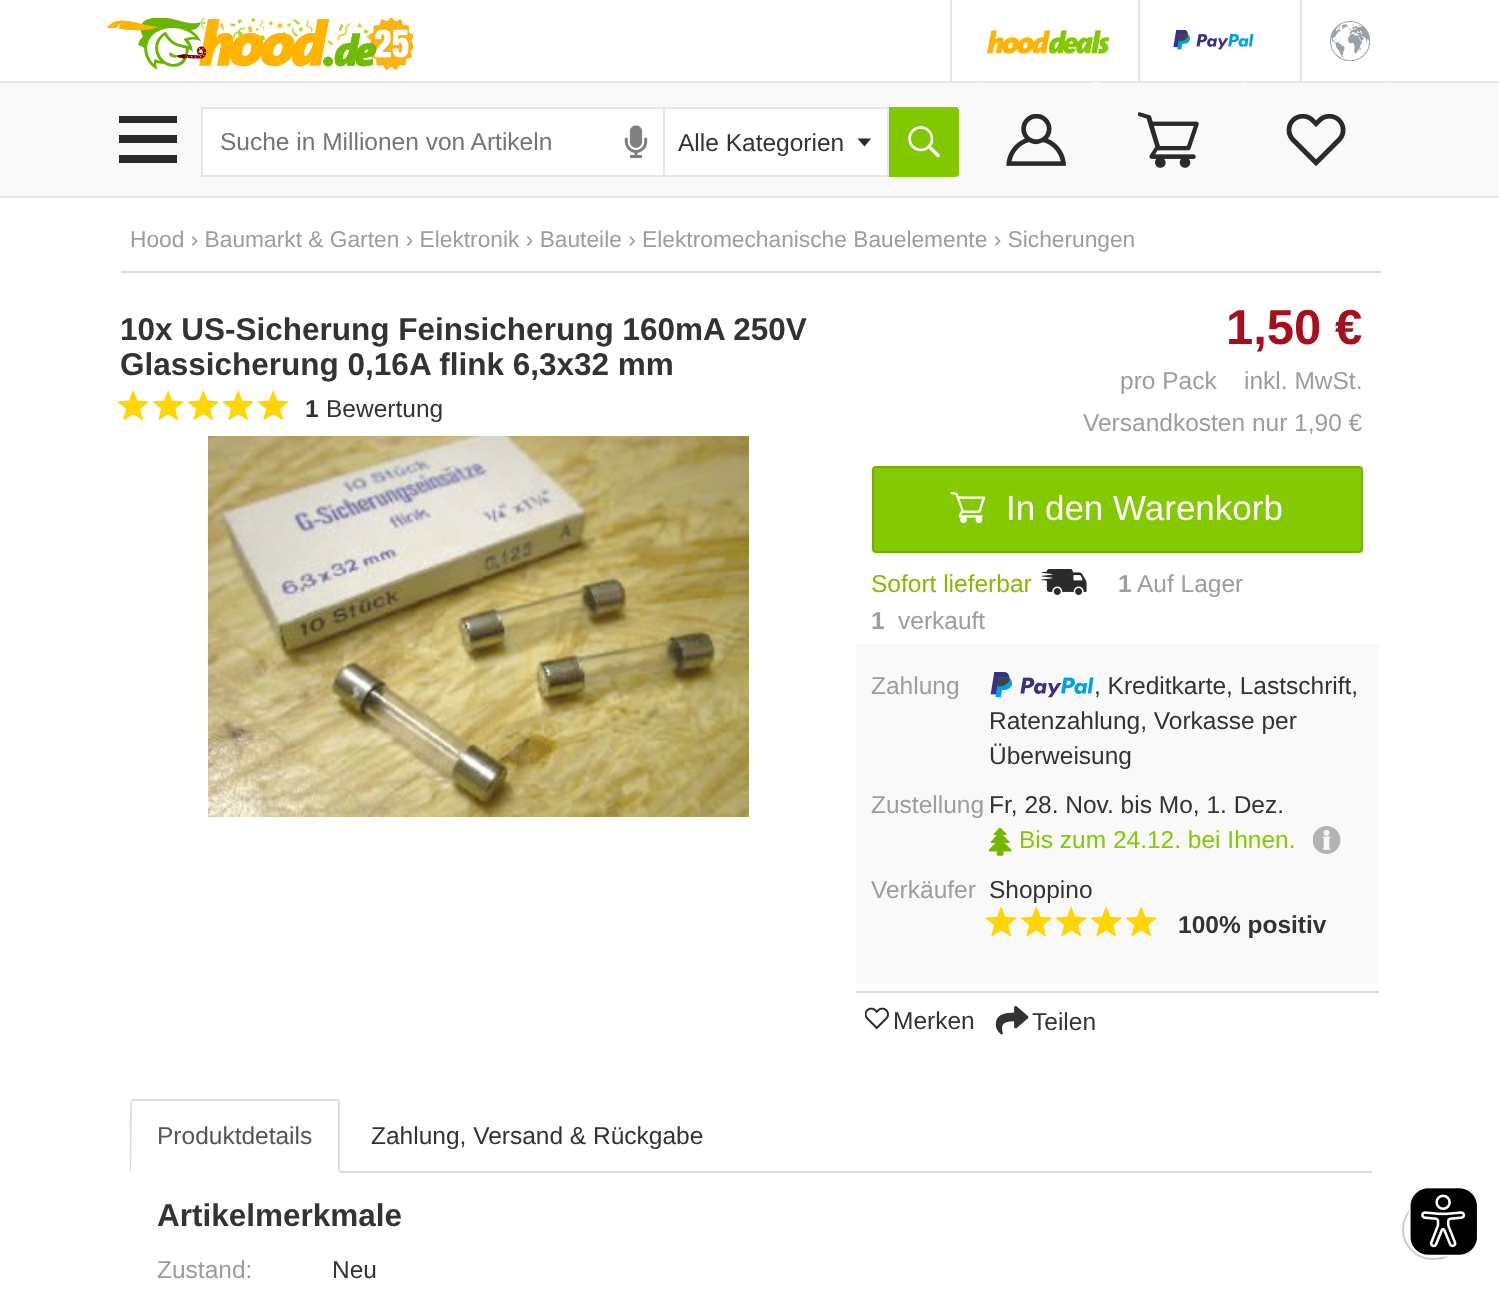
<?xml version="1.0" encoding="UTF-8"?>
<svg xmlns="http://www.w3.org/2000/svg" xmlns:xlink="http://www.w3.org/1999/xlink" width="1499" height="1295">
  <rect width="100%" height="100%" fill="#ffffff" />
  <image x="368" y="18" width="45" height="52" xlink:href="image2.png" />
  <image x="106" y="18" width="271" height="52" xlink:href="image1.png" />
  <rect x="950" width="2" height="81" fill="#e6e6e6" />
  <image x="987" y="30" width="123" height="24" xlink:href="image3.png" />
  <rect x="1138" width="2" height="81" fill="#e6e6e6" />
  <image x="1173" y="30" width="81" height="20" xlink:href="image4.png" />
  <rect x="1300" width="2" height="81" fill="#e6e6e6" />
  <image x="1330" y="21" width="40" height="40" xlink:href="image5.png" />
  <rect y="83" width="1499" height="113" fill="#f9f9f9" />
  <rect y="81" width="1499" height="2" fill="#e6e6e6" />
  <rect y="196" width="1499" height="2" fill="#e6e6e6" />
  <rect x="119" y="116" width="58" height="7" fill="#2b2a29" />
  <rect x="119" y="135" width="58" height="8" fill="#2b2a29" />
  <rect x="119" y="155" width="58" height="8" fill="#2b2a29" />
  <rect x="202" y="108" width="462" height="68" fill="#ffffff" stroke="#e6e6e6" stroke-width="2" />
  <image x="624" y="125" width="24" height="34" xlink:href="image6.png" />
  <rect x="665" y="109" width="222" height="66" fill="#ffffff" />
  <rect x="665" y="107" width="224" height="2" fill="#e6e6e6" />
  <rect x="887" y="107" width="2" height="70" fill="#e6e6e6" />
  <rect x="665" y="175" width="224" height="2" fill="#e6e6e6" />
  <path d="M 871 138.5 l -6.5 8 l -7 -8 z" fill="#2b2a29" fill-rule="evenodd" />
  <image x="891" y="107" width="68" height="70" xlink:href="image7.png" />
  <path d="M 890 108 h 65 c 1.5 0 3 1.5 3 3 v 62 c 0 1.5 -1.5 3 -3 3 h -65 z" fill="none" stroke="#82c800" stroke-width="2" />
  <rect x="1094" y="82" width="4" height="1" fill="#f9f9f9" />
  <rect x="977" y="82" width="2" height="1" fill="#f9f9f9" />
  <image x="1006" y="114" width="60" height="52" xlink:href="image8.png" />
  <rect x="1241" y="82" width="4" height="1" fill="#f9f9f9" />
  <image x="1138" y="112" width="61" height="56" xlink:href="image9.png" />
  <rect x="1388" y="82" width="2" height="1" fill="#f9f9f9" />
  <image x="1286" y="114" width="60" height="52" xlink:href="image10.png" />
  <rect x="121" y="271" width="1260" height="2" fill="#dadada" />
  <image x="117" y="390" width="32" height="30" xlink:href="image11.png" />
  <image x="152" y="390" width="32" height="30" xlink:href="image11.png" />
  <image x="187" y="390" width="32" height="30" xlink:href="image11.png" />
  <image x="222" y="390" width="32" height="30" xlink:href="image11.png" />
  <image x="257" y="390" width="32" height="30" xlink:href="image11.png" />
  <image x="208" y="436" width="541" height="381" xlink:href="image12.png" />
  <rect x="873" y="467" width="489" height="85" rx="3" fill="#85c903" stroke="#74b003" stroke-width="2" />
  <image x="950" y="492" width="35" height="31" xlink:href="image13.png" />
  <image x="1041" y="569" width="46" height="26" xlink:href="image14.png" />
  <rect x="856" y="644" width="523" height="340" fill="#f9f9f9" />
  <image x="990" y="672" width="104" height="26" xlink:href="image15.png" />
  <image x="989" y="828" width="23" height="28" xlink:href="image16.png" />
  <image x="1313" y="826" width="28" height="28" xlink:href="image17.png" />
  <image x="985" y="907" width="32" height="29" xlink:href="image18.png" />
  <image x="1020" y="907" width="32" height="29" xlink:href="image18.png" />
  <image x="1055" y="907" width="32" height="29" xlink:href="image18.png" />
  <image x="1090" y="907" width="32" height="29" xlink:href="image18.png" />
  <image x="1125" y="907" width="32" height="29" xlink:href="image18.png" />
  <rect x="856" y="991" width="523" height="2" fill="#dadada" />
  <image x="865" y="1007" width="24" height="23" xlink:href="image19.png" />
  <image x="995" y="1006" width="34" height="29" xlink:href="image20.png" />
  <rect x="340" y="1171" width="1032" height="2" fill="#dddddd" />
  <path d="M 133 1099 l -2 1 l 1 2 l 1 -1 h 204 l 2 -1 l -3 -1 z" fill="#dddddd" />
  <path d="M 340 1172 l -2 -1 v -69 l -1 -1 l 2 -1 l 1 1 z" fill="#dddddd" />
  <path d="M 131 1100 c -2 3 -1 64 -1 72 l 1 -1 l 1 -69 z" fill="#dddddd" />
  <rect x="1403" y="1200" width="61" height="59" rx="29.5" fill="none" stroke="#cccccc" stroke-width="2" />
  <image x="1409" y="1188" width="68" height="69" xlink:href="image21.png" />
  <text x="220" y="150" style="font-family: Liberation Sans; font-size: 24.5px; fill: #757575">Suche in Millionen von Artikeln</text>
  <text x="678" y="151" style="font-family: Liberation Sans; font-size: 24.5px; fill: #333333">Alle Kategorien</text>
  <text x="130" y="247" style="font-family: Liberation Sans; font-size: 22.75px; fill: #9d9d9d">Hood › Baumarkt &amp; Garten › Elektronik › Bauteile › Elektromechanische Bauelemente › Sicherungen</text>
  <text x="120" y="340" style="font-family: Liberation Sans; font-size: 31.5px; font-weight: bold; fill: #333333">10x US-Sicherung Feinsicherung 160mA 250V</text>
  <text x="120" y="375" style="font-family: Liberation Sans; font-size: 31.5px; font-weight: bold; fill: #333333">Glassicherung 0,16A flink 6,3x32 mm</text>
  <text x="305" y="417" style="font-family: Liberation Sans; font-size: 24.5px; font-weight: bold; fill: #333333">1</text>
  <text x="326" y="417" style="font-family: Liberation Sans; font-size: 24.5px; fill: #333333">Bewertung</text>
  <text x="1226" y="344" style="font-family: Liberation Sans; font-size: 49px; font-weight: bold; fill: #a50f1f">1,50 €</text>
  <text x="1120" y="389" style="font-family: Liberation Sans; font-size: 24.5px; fill: #9d9d9d">pro Pack</text>
  <text x="1244" y="389" style="font-family: Liberation Sans; font-size: 24.5px; fill: #9d9d9d">inkl. MwSt.</text>
  <text x="1083" y="431" style="font-family: Liberation Sans; font-size: 24.5px; fill: #9d9d9d">Versandkosten nur 1,90 €</text>
  <text x="1006" y="520" style="font-family: Liberation Sans; font-size: 35px; fill: #ffffff">In den Warenkorb</text>
  <text x="871" y="592" style="font-family: Liberation Sans; font-size: 24.5px; fill: #8ab700">Sofort lieferbar</text>
  <text x="1118" y="592" style="font-family: Liberation Sans; font-size: 24.5px; font-weight: bold; fill: #9d9d9d">1</text>
  <text x="1137" y="592" style="font-family: Liberation Sans; font-size: 24.5px; fill: #9d9d9d">Auf Lager</text>
  <text x="871" y="629" style="font-family: Liberation Sans; font-size: 24.5px; font-weight: bold; fill: #9d9d9d">1</text>
  <text x="898" y="629" style="font-family: Liberation Sans; font-size: 24.5px; fill: #9d9d9d">verkauft</text>
  <text x="871" y="694" style="font-family: Liberation Sans; font-size: 24.5px; fill: #9d9d9d">Zahlung</text>
  <text x="1094" y="694" style="font-family: Liberation Sans; font-size: 24.5px; fill: #333333">, Kreditkarte, Lastschrift,</text>
  <text x="989" y="729" style="font-family: Liberation Sans; font-size: 24.5px; fill: #333333">Ratenzahlung, Vorkasse per</text>
  <text x="989" y="764" style="font-family: Liberation Sans; font-size: 24.5px; fill: #333333">Überweisung</text>
  <text x="871" y="813" style="font-family: Liberation Sans; font-size: 24.5px; fill: #9d9d9d">Zustellung</text>
  <text x="989" y="813" style="font-family: Liberation Sans; font-size: 24.5px; fill: #333333">Fr, 28. Nov. bis Mo, 1. Dez.</text>
  <text x="1019" y="848" style="font-family: Liberation Sans; font-size: 24.5px; fill: #85c903">Bis zum 24.12. bei Ihnen.</text>
  <text x="871" y="898" style="font-family: Liberation Sans; font-size: 24.5px; fill: #9d9d9d">Verkäufer</text>
  <text x="989" y="898" style="font-family: Liberation Sans; font-size: 24.5px; fill: #333333">Shoppino</text>
  <text x="1178" y="933" style="font-family: Liberation Sans; font-size: 24.5px; font-weight: bold; fill: #333333">100% positiv</text>
  <text x="893" y="1029" style="font-family: Liberation Sans; font-size: 24.5px; fill: #333333">Merken</text>
  <text x="1032" y="1030" style="font-family: Liberation Sans; font-size: 24.5px; fill: #333333">Teilen</text>
  <text x="157" y="1144" style="font-family: Liberation Sans; font-size: 24.5px; fill: #555555">Produktdetails</text>
  <text x="371" y="1144" style="font-family: Liberation Sans; font-size: 24.5px; fill: #333333">Zahlung, Versand &amp; Rückgabe</text>
  <text x="157" y="1226" style="font-family: Liberation Sans; font-size: 31.5px; font-weight: bold; fill: #333333">Artikelmerkmale</text>
  <text x="157" y="1278" style="font-family: Liberation Sans; font-size: 24.5px; fill: #9d9d9d">Zustand:</text>
  <text x="332" y="1278" style="font-family: Liberation Sans; font-size: 24.5px; fill: #333333">Neu</text>
</svg>
